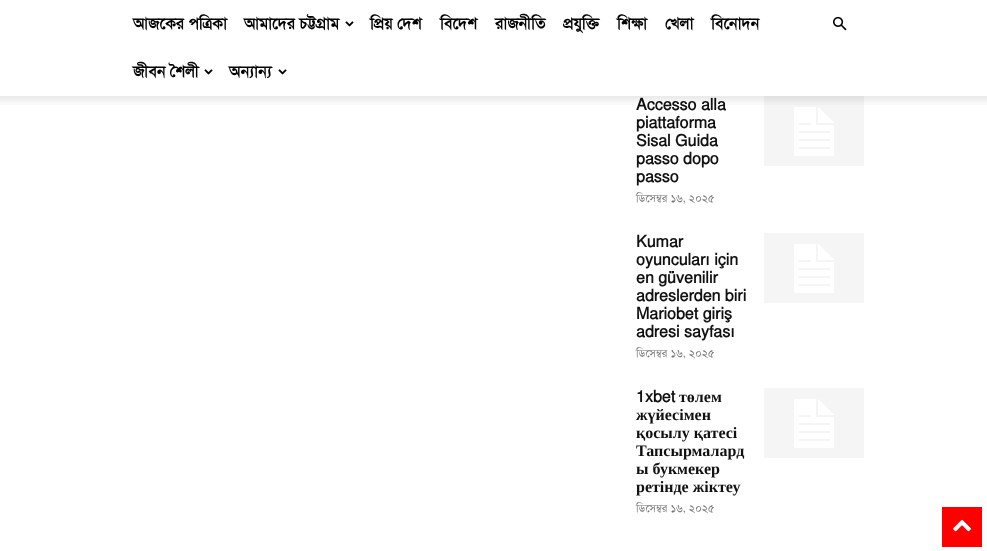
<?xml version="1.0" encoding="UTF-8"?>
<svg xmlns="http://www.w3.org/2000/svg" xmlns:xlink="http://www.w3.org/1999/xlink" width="987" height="551">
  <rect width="100%" height="100%" fill="#ffffff" />
  <image x="345" y="21" width="9" height="6" xlink:href="image1.png" />
  <image x="204" y="69" width="9" height="6" xlink:href="image1.png" />
  <image x="278" y="69" width="9" height="6" xlink:href="image1.png" />
  <image x="833" y="16" width="14" height="15" xlink:href="image2.png" />
  <image x="764" y="96" width="100" height="70" xlink:href="image4.png" />
  <image x="764" y="233" width="100" height="70" xlink:href="image4.png" />
  <image x="764" y="388" width="100" height="70" xlink:href="image4.png" />
  <rect x="942" y="507" width="40" height="40" fill="#ff0000" />
  <image x="953" y="519" width="18" height="13" xlink:href="image5.png" />
  <text x="133" y="29" style="font-family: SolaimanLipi; font-size: 16px; font-weight: bold; fill: #000000">আজকের পত্রিকা</text>
  <text x="244" y="29" style="font-family: SolaimanLipi; font-size: 16px; font-weight: bold; fill: #000000">আমাদের চট্টগ্রাম</text>
  <text x="370" y="29" style="font-family: SolaimanLipi; font-size: 16px; font-weight: bold; fill: #000000">প্রিয় দেশ</text>
  <text x="440" y="29" style="font-family: SolaimanLipi; font-size: 16px; font-weight: bold; fill: #000000">বিদেশ</text>
  <text x="495" y="29" style="font-family: SolaimanLipi; font-size: 16px; font-weight: bold; fill: #000000">রাজনীতি</text>
  <text x="563" y="29" style="font-family: SolaimanLipi; font-size: 16px; font-weight: bold; fill: #000000">প্রযুক্তি</text>
  <text x="617" y="29" style="font-family: SolaimanLipi; font-size: 16px; font-weight: bold; fill: #000000">শিক্ষা</text>
  <text x="665" y="29" style="font-family: SolaimanLipi; font-size: 16px; font-weight: bold; fill: #000000">খেলা</text>
  <text x="711" y="29" style="font-family: SolaimanLipi; font-size: 16px; font-weight: bold; fill: #000000">বিনোদন</text>
  <text x="133" y="77" style="font-family: SolaimanLipi; font-size: 16px; font-weight: bold; fill: #000000">জীবন শৈলী</text>
  <text x="229" y="77" style="font-family: SolaimanLipi; font-size: 16px; font-weight: bold; fill: #000000">অন্যান্য</text>
  <text x="636" y="110" style="font-family: SolaimanLipi; font-size: 16px; font-weight: bold; fill: #111111">Accesso alla</text>
  <image x="0" y="96" width="987" height="9" xlink:href="image3.png" />
  <text x="636" y="128" style="font-family: SolaimanLipi; font-size: 16px; font-weight: bold; fill: #111111">piattaforma</text>
  <text x="636" y="146" style="font-family: SolaimanLipi; font-size: 16px; font-weight: bold; fill: #111111">Sisal Guida</text>
  <text x="636" y="164" style="font-family: SolaimanLipi; font-size: 16px; font-weight: bold; fill: #111111">passo dopo</text>
  <text x="636" y="182" style="font-family: SolaimanLipi; font-size: 16px; font-weight: bold; fill: #111111">passo</text>
  <text x="636" y="202" style="font-family: SolaimanLipi; font-size: 11px; fill: #767676">ডিসেম্বর ১৬, ২০২৫</text>
  <text x="636" y="247" style="font-family: SolaimanLipi; font-size: 16px; font-weight: bold; fill: #111111">Kumar</text>
  <text x="636" y="265" style="font-family: SolaimanLipi; font-size: 16px; font-weight: bold; fill: #111111">oyuncuları için</text>
  <text x="636" y="283" style="font-family: SolaimanLipi; font-size: 16px; font-weight: bold; fill: #111111">en güvenilir</text>
  <text x="636" y="301" style="font-family: SolaimanLipi; font-size: 16px; font-weight: bold; fill: #111111">adreslerden biri</text>
  <text x="636" y="319" style="font-family: SolaimanLipi; font-size: 16px; font-weight: bold; fill: #111111">Mariobet giriş</text>
  <text x="636" y="337" style="font-family: SolaimanLipi; font-size: 16px; font-weight: bold; fill: #111111">adresi sayfası</text>
  <text x="636" y="357" style="font-family: SolaimanLipi; font-size: 11px; fill: #767676">ডিসেম্বর ১৬, ২০২৫</text>
  <text x="636" y="402" style="font-family: SolaimanLipi; font-size: 16px; font-weight: bold; fill: #111111">1xbet</text>
  <text x="679" y="402" style="font-family: Liberation Serif; font-size: 16px; font-weight: bold; fill: #111111">төлем</text>
  <text x="636" y="420" style="font-family: Liberation Serif; font-size: 16px; font-weight: bold; fill: #111111">жүйесімен</text>
  <text x="636" y="438" style="font-family: Liberation Serif; font-size: 16px; font-weight: bold; fill: #111111">қосылу қатесі</text>
  <text x="636" y="456" style="font-family: Liberation Serif; font-size: 16px; font-weight: bold; fill: #111111">Тапсырмалард</text>
  <text x="636" y="474" style="font-family: Liberation Serif; font-size: 16px; font-weight: bold; fill: #111111">ы букмекер</text>
  <text x="636" y="492" style="font-family: Liberation Serif; font-size: 16px; font-weight: bold; fill: #111111">ретінде жіктеу</text>
  <text x="636" y="512" style="font-family: SolaimanLipi; font-size: 11px; fill: #767676">ডিসেম্বর ১৬, ২০২৫</text>
</svg>
